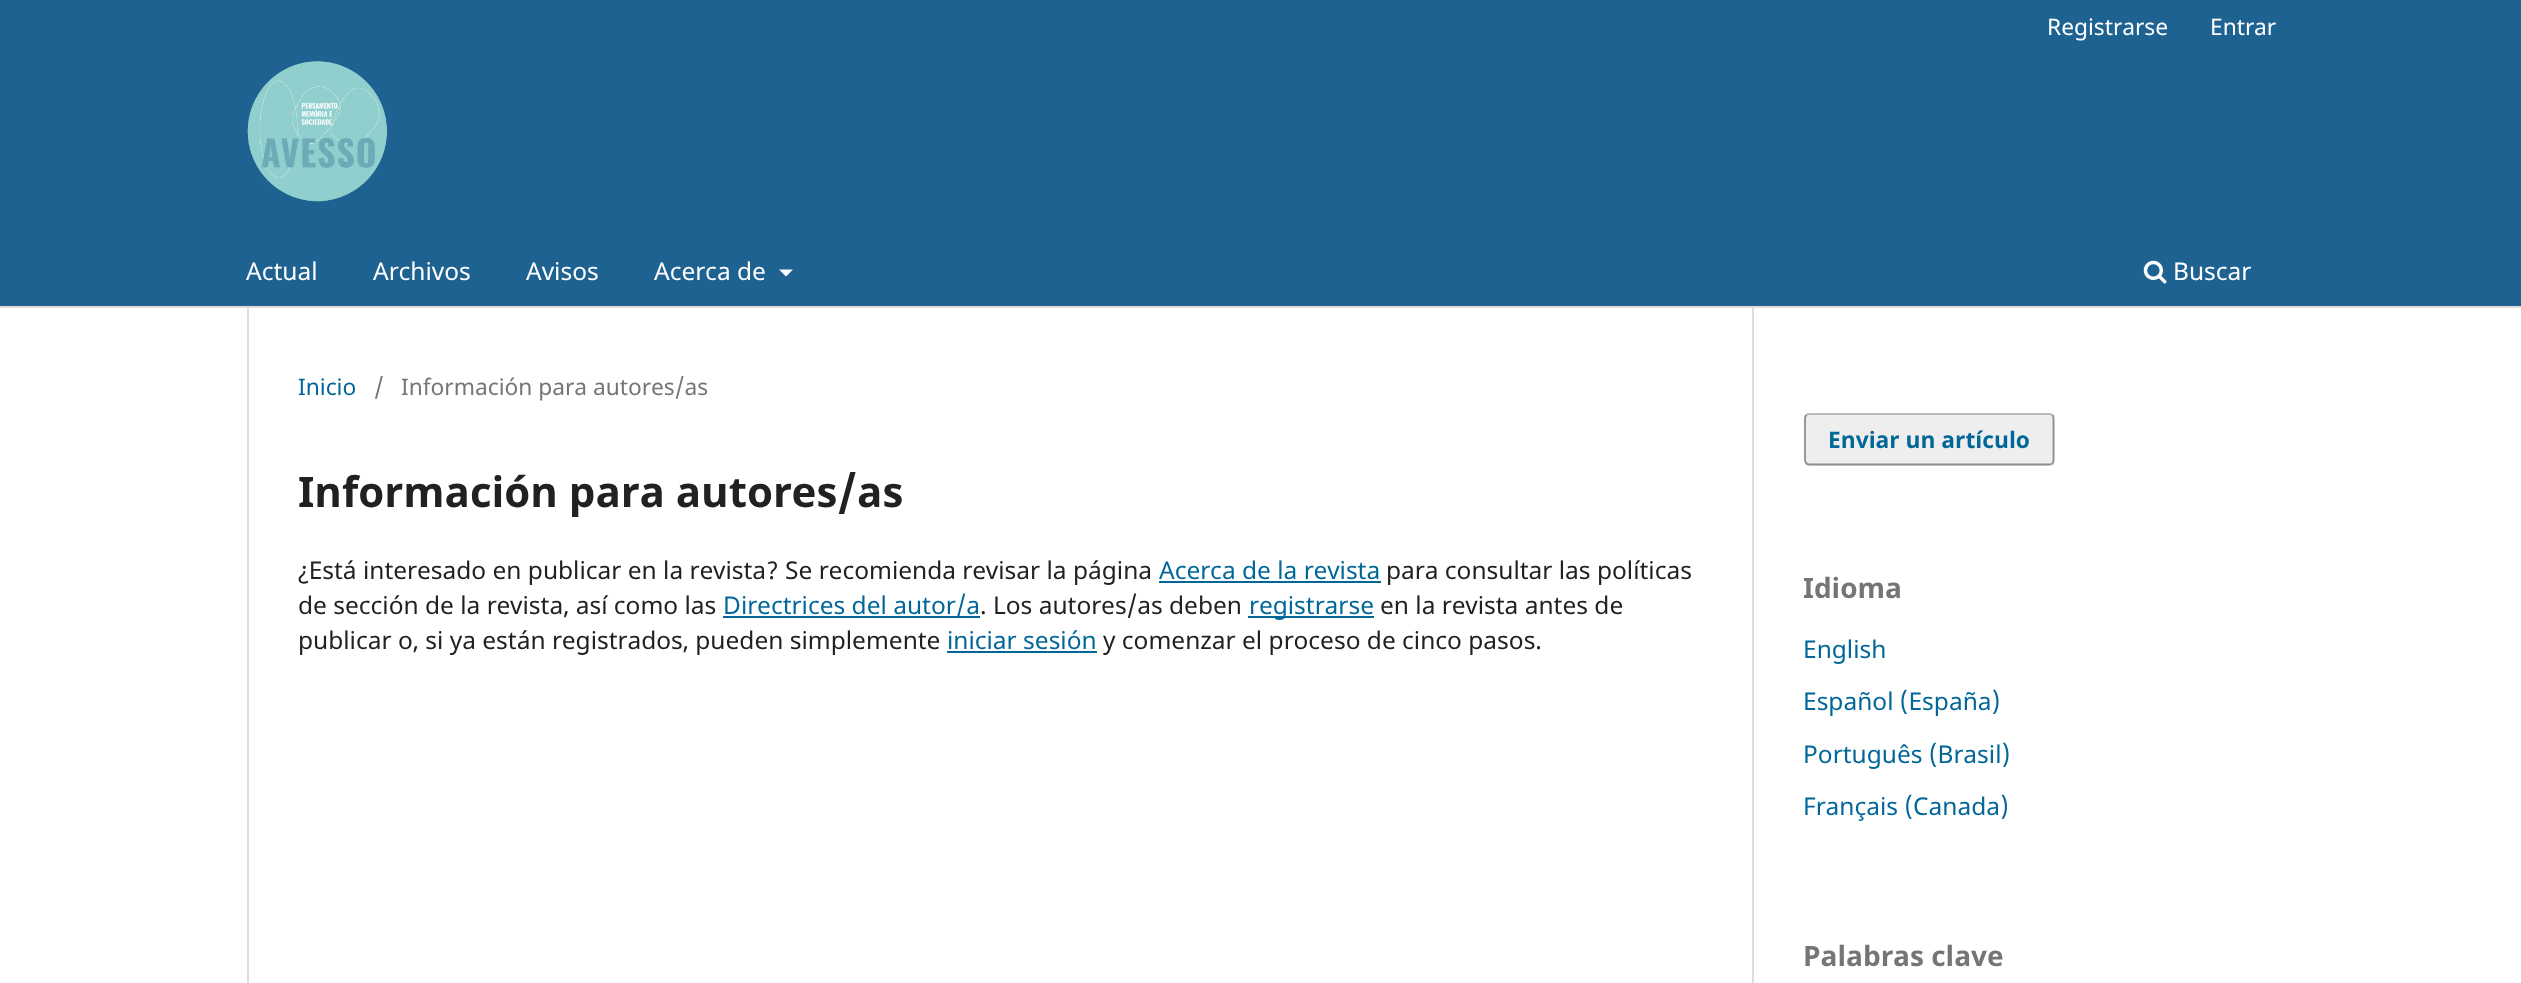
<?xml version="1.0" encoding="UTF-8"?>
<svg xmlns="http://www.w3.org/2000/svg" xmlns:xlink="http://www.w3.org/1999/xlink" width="2521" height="983">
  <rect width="100%" height="100%" fill="#ffffff" />
  <rect width="2521" height="306" fill="#1e6292" />
  <rect y="306" width="2521" height="2" fill="#dddddd" />
  <path d="M 779 269.5 h 14 l -7 7 z" fill="#ffffff" />
  <image x="2143" y="260" width="24" height="24" xlink:href="image1.png" />
  <image x="247" y="61" width="141" height="141" xlink:href="image2.png" />
  <rect x="247" y="308" width="2" height="675" fill="#dddddd" />
  <rect x="1159" y="581" width="222" height="2" fill="#006798" />
  <rect x="723" y="616" width="257" height="2" fill="#006798" />
  <rect x="1248" y="616" width="126" height="2" fill="#006798" />
  <rect x="947" y="651" width="150" height="2" fill="#006798" />
  <rect x="1752" y="308" width="2" height="675" fill="#dddddd" />
  <rect x="1804" y="413" width="251" height="53" rx="5" fill="#eeeeee" />
  <path d="M 1806.5 415 c 0.5 -0.5 2 -1 3 -1 h 239.5 c 1.5 0 2.5 0.5 3.5 1" fill="none" stroke="#bbbbbb" stroke-width="1.8" />
  <path d="M 2052.5 415 c 0.5 1 1 2 1 3 v 42 c 0 1.5 -0.5 2.5 -1 3.5 c -1 0.5 -2 1 -3.5 1 h -239.5 c -1 0 -2.5 -0.5 -3 -1 c -1 -1 -1.5 -2 -1.5 -3.5 v -42 c 0 -1 0.5 -2 1.5 -3" fill="none" stroke="#000000" stroke-opacity="0.4" stroke-width="1.8" />
  <text x="2047" y="35" style="font-family: Noto Sans; font-size: 22.75px; fill: #ffffff">Registrarse</text>
  <text x="2210" y="35" style="font-family: Noto Sans; font-size: 22.75px; fill: #ffffff">Entrar</text>
  <text x="246" y="280" style="font-family: Noto Sans; font-size: 24.5px; fill: #ffffff">Actual</text>
  <text x="373" y="280" style="font-family: Noto Sans; font-size: 24.5px; fill: #ffffff">Archivos</text>
  <text x="526" y="280" style="font-family: Noto Sans; font-size: 24.5px; fill: #ffffff">Avisos</text>
  <text x="654" y="280" style="font-family: Noto Sans; font-size: 24.5px; fill: #ffffff">Acerca de</text>
  <text x="2173" y="280" style="font-family: Noto Sans; font-size: 24.5px; fill: #ffffff">Buscar</text>
  <text x="298" y="395" style="font-family: Noto Sans; font-size: 22.75px; fill: #006798">Inicio</text>
  <text x="374" y="395" style="font-family: Noto Sans; font-size: 22.75px; fill: #757575">/</text>
  <text x="401" y="395" style="font-family: Noto Sans; font-size: 22.75px; fill: #757575">Información para autores/as</text>
  <text x="298" y="507" style="font-family: Noto Sans; font-size: 42px; font-weight: bold; fill: #212121">Información para autores/as</text>
  <text x="298" y="579" style="font-family: Noto Sans; font-size: 24.5px; fill: #212121">¿Está interesado en publicar en la revista? Se recomienda revisar la página</text>
  <text x="1159" y="579" style="font-family: Noto Sans; font-size: 24.5px; fill: #006798">Acerca de la revista</text>
  <text x="1386" y="579" style="font-family: Noto Sans; font-size: 24.5px; fill: #212121">para consultar las políticas</text>
  <text x="298" y="614" style="font-family: Noto Sans; font-size: 24.5px; fill: #212121">de sección de la revista, así como las</text>
  <text x="723" y="614" style="font-family: Noto Sans; font-size: 24.5px; fill: #006798">Directrices del autor/a</text>
  <text x="980" y="614" style="font-family: Noto Sans; font-size: 24.5px; fill: #212121">. Los autores/as deben</text>
  <text x="1249" y="614" style="font-family: Noto Sans; font-size: 24.5px; fill: #006798">registrarse</text>
  <text x="1380" y="614" style="font-family: Noto Sans; font-size: 24.5px; fill: #212121">en la revista antes de</text>
  <text x="298" y="649" style="font-family: Noto Sans; font-size: 24.5px; fill: #212121">publicar o, si ya están registrados, pueden simplemente</text>
  <text x="947" y="649" style="font-family: Noto Sans; font-size: 24.5px; fill: #006798">iniciar sesión</text>
  <text x="1103" y="649" style="font-family: Noto Sans; font-size: 24.5px; fill: #212121">y comenzar el proceso de cinco pasos.</text>
  <text x="1828" y="448" style="font-family: Noto Sans; font-size: 22.75px; font-weight: bold; fill: #006798">Enviar un artículo</text>
  <text x="1803" y="598" style="font-family: Noto Sans; font-size: 28px; font-weight: bold; fill: #757575">Idioma</text>
  <text x="1803" y="658" style="font-family: Noto Sans; font-size: 24.5px; fill: #006798">English</text>
  <text x="1803" y="710" style="font-family: Noto Sans; font-size: 24.5px; fill: #006798">Español (España)</text>
  <text x="1803" y="763" style="font-family: Noto Sans; font-size: 24.5px; fill: #006798">Português (Brasil)</text>
  <text x="1803" y="815" style="font-family: Noto Sans; font-size: 24.5px; fill: #006798">Français (Canada)</text>
  <text x="1803" y="966" style="font-family: Noto Sans; font-size: 28px; font-weight: bold; fill: #757575">Palabras clave</text>
</svg>
